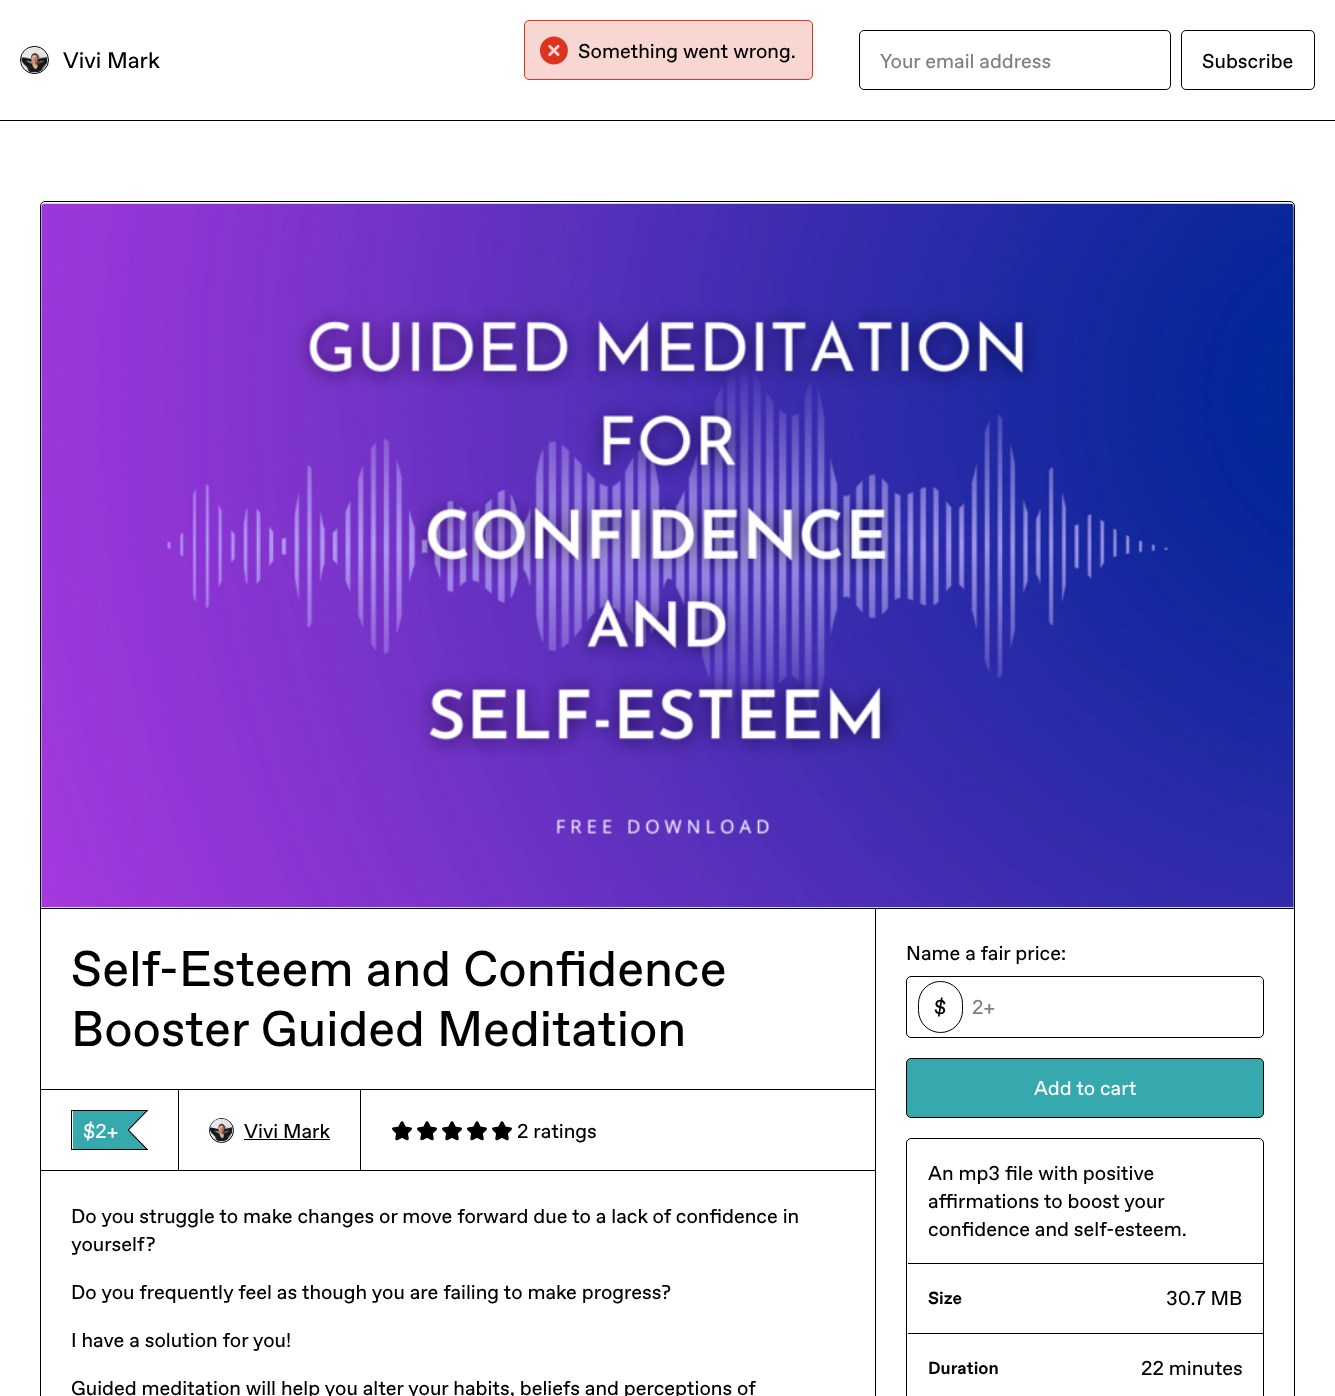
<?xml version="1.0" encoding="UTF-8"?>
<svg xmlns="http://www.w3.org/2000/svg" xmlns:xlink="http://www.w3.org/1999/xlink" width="1335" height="1396">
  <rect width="100%" height="100%" fill="#ffffff" />
  <rect x="524.5" y="20.5" width="288" height="59" rx="4.5" fill="#f8d6d2" stroke="#dc341e" />
  <image x="539" y="36" width="29" height="29" xlink:href="image1.png" />
  <rect y="120" width="1335" height="1" fill="#000000" />
  <rect x="20.5" y="46.5" width="28" height="27" rx="13.5" fill="none" stroke="#000000" />
  <image x="21" y="47" width="27" height="26" xlink:href="image2.png" />
  <rect x="859.5" y="30.5" width="311" height="59" rx="4.5" fill="none" stroke="#000000" />
  <rect x="1181.5" y="30.5" width="133" height="59" rx="4.5" fill="none" stroke="#000000" />
  <rect x="40.5" y="201.5" width="1254" height="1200" rx="4.5" fill="none" stroke="#000000" />
  <rect x="41" y="908" width="1253" height="1" fill="#000000" />
  <image x="41" y="203" width="1253" height="705" xlink:href="image3.png" />
  <rect x="875" y="909" width="1" height="487" fill="#000000" />
  <rect x="361" y="1089" width="514" height="1" fill="#000000" />
  <rect x="40.5" y="1089.5" width="138" height="81" fill="none" stroke="#000000" />
  <rect x="71" y="1110" width="77" height="1" fill="#000000" />
  <rect x="71" y="1149" width="77" height="1" fill="#000000" />
  <rect x="71" y="1110" width="1" height="40" fill="#000000" />
  <rect x="73" y="1111" width="55" height="38" fill="#36a9ae" />
  <path d="M 127.5 1111 h 20 l -18.5 19 z m 20 38 h -20 l 1.5 -19 z" fill="#000000" />
  <rect x="128" y="1128" width="1" height="4" fill="#000000" />
  <path d="M 126 1111 h 20 l -18.5 19 z m 20 38 h -20 l 1.5 -19 z" fill="#36a9ae" />
  <rect x="178.5" y="1089.5" width="182" height="81" fill="none" stroke="#000000" />
  <circle cx="221.5" cy="1130.5" r="12" fill="none" stroke="#000000" />
  <image x="210" y="1118" width="23" height="24" xlink:href="image4.png" />
  <rect x="244" y="1139" width="86" height="1" fill="#000000" />
  <image x="392" y="1121" width="20" height="20" xlink:href="image5.png" />
  <image x="417" y="1121" width="20" height="20" xlink:href="image5.png" />
  <image x="442" y="1121" width="20" height="20" xlink:href="image5.png" />
  <image x="467" y="1121" width="20" height="20" xlink:href="image5.png" />
  <image x="492" y="1121" width="20" height="20" xlink:href="image5.png" />
  <rect x="361" y="1170" width="514" height="1" fill="#000000" />
  <rect x="906.5" y="976.5" width="357" height="61" rx="4.5" fill="none" stroke="#000000" />
  <rect x="918.5" y="981.5" width="44" height="51" rx="22" fill="none" stroke="#000000" />
  <rect x="906.5" y="1058.5" width="357" height="59" rx="4.5" fill="#36a9ae" stroke="#000000" />
  <rect x="906.5" y="1138.5" width="357" height="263" rx="4.5" fill="none" stroke="#000000" />
  <rect x="908" y="1263" width="355" height="1" fill="#000000" />
  <rect x="908" y="1333" width="355" height="1" fill="#000000" />
  <text x="578" y="58" style="font-family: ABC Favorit; font-size: 20px; fill: #000000">Something went wrong.</text>
  <text x="63" y="68" style="font-family: ABC Favorit; font-size: 22.5px; fill: #000000">Vivi Mark</text>
  <text x="880" y="68" style="font-family: ABC Favorit; font-size: 20px; fill: #808080">Your email address</text>
  <text x="1202" y="68" style="font-family: ABC Favorit; font-size: 20px; fill: #000000">Subscribe</text>
  <text x="71" y="986" style="font-family: ABC Favorit; font-size: 50px; fill: #000000">Self-Esteem and Confidence</text>
  <text x="71" y="1046" style="font-family: ABC Favorit; font-size: 50px; fill: #000000">Booster Guided Meditation</text>
  <text x="83" y="1138" style="font-family: ABC Favorit; font-size: 20px; fill: #ffffff">$2+</text>
  <text x="244" y="1138" style="font-family: ABC Favorit; font-size: 20px; fill: #000000">Vivi Mark</text>
  <text x="517" y="1138" style="font-family: ABC Favorit; font-size: 20px; fill: #000000">2 ratings</text>
  <text x="71" y="1223" style="font-family: ABC Favorit; font-size: 20px; fill: #000000">Do you struggle to make changes or move forward due to a lack of confidence in</text>
  <text x="71" y="1251" style="font-family: ABC Favorit; font-size: 20px; fill: #000000">yourself?</text>
  <text x="71" y="1299" style="font-family: ABC Favorit; font-size: 20px; fill: #000000">Do you frequently feel as though you are failing to make progress?</text>
  <text x="71" y="1347" style="font-family: ABC Favorit; font-size: 20px; fill: #000000">I have a solution for you!</text>
  <text x="71" y="1395" style="font-family: ABC Favorit; font-size: 20px; fill: #000000">Guided meditation will help you alter your habits, beliefs and perceptions of</text>
  <text x="906" y="960" style="font-family: ABC Favorit; font-size: 20px; fill: #000000">Name a fair price:</text>
  <text x="934" y="1014" style="font-family: ABC Favorit; font-size: 20px; fill: #000000">$</text>
  <text x="972" y="1014" style="font-family: ABC Favorit; font-size: 20px; fill: #808080">2+</text>
  <text x="1034" y="1095" style="font-family: ABC Favorit; font-size: 20px; fill: #ffffff">Add to cart</text>
  <text x="928" y="1180" style="font-family: ABC Favorit; font-size: 20px; fill: #000000">An mp3 file with positive</text>
  <text x="928" y="1208" style="font-family: ABC Favorit; font-size: 20px; fill: #000000">affirmations to boost your</text>
  <text x="928" y="1236" style="font-family: ABC Favorit; font-size: 20px; fill: #000000">confidence and self-esteem.</text>
  <text x="928" y="1304" style="font-family: ABC Favorit; font-size: 17.5px; font-weight: bold; fill: #000000">Size</text>
  <text x="1166" y="1305" style="font-family: ABC Favorit; font-size: 20px; fill: #000000">30.7 MB</text>
  <text x="928" y="1374" style="font-family: ABC Favorit; font-size: 17.5px; font-weight: bold; fill: #000000">Duration</text>
  <text x="1141" y="1375" style="font-family: ABC Favorit; font-size: 20px; fill: #000000">22 minutes</text>
</svg>
